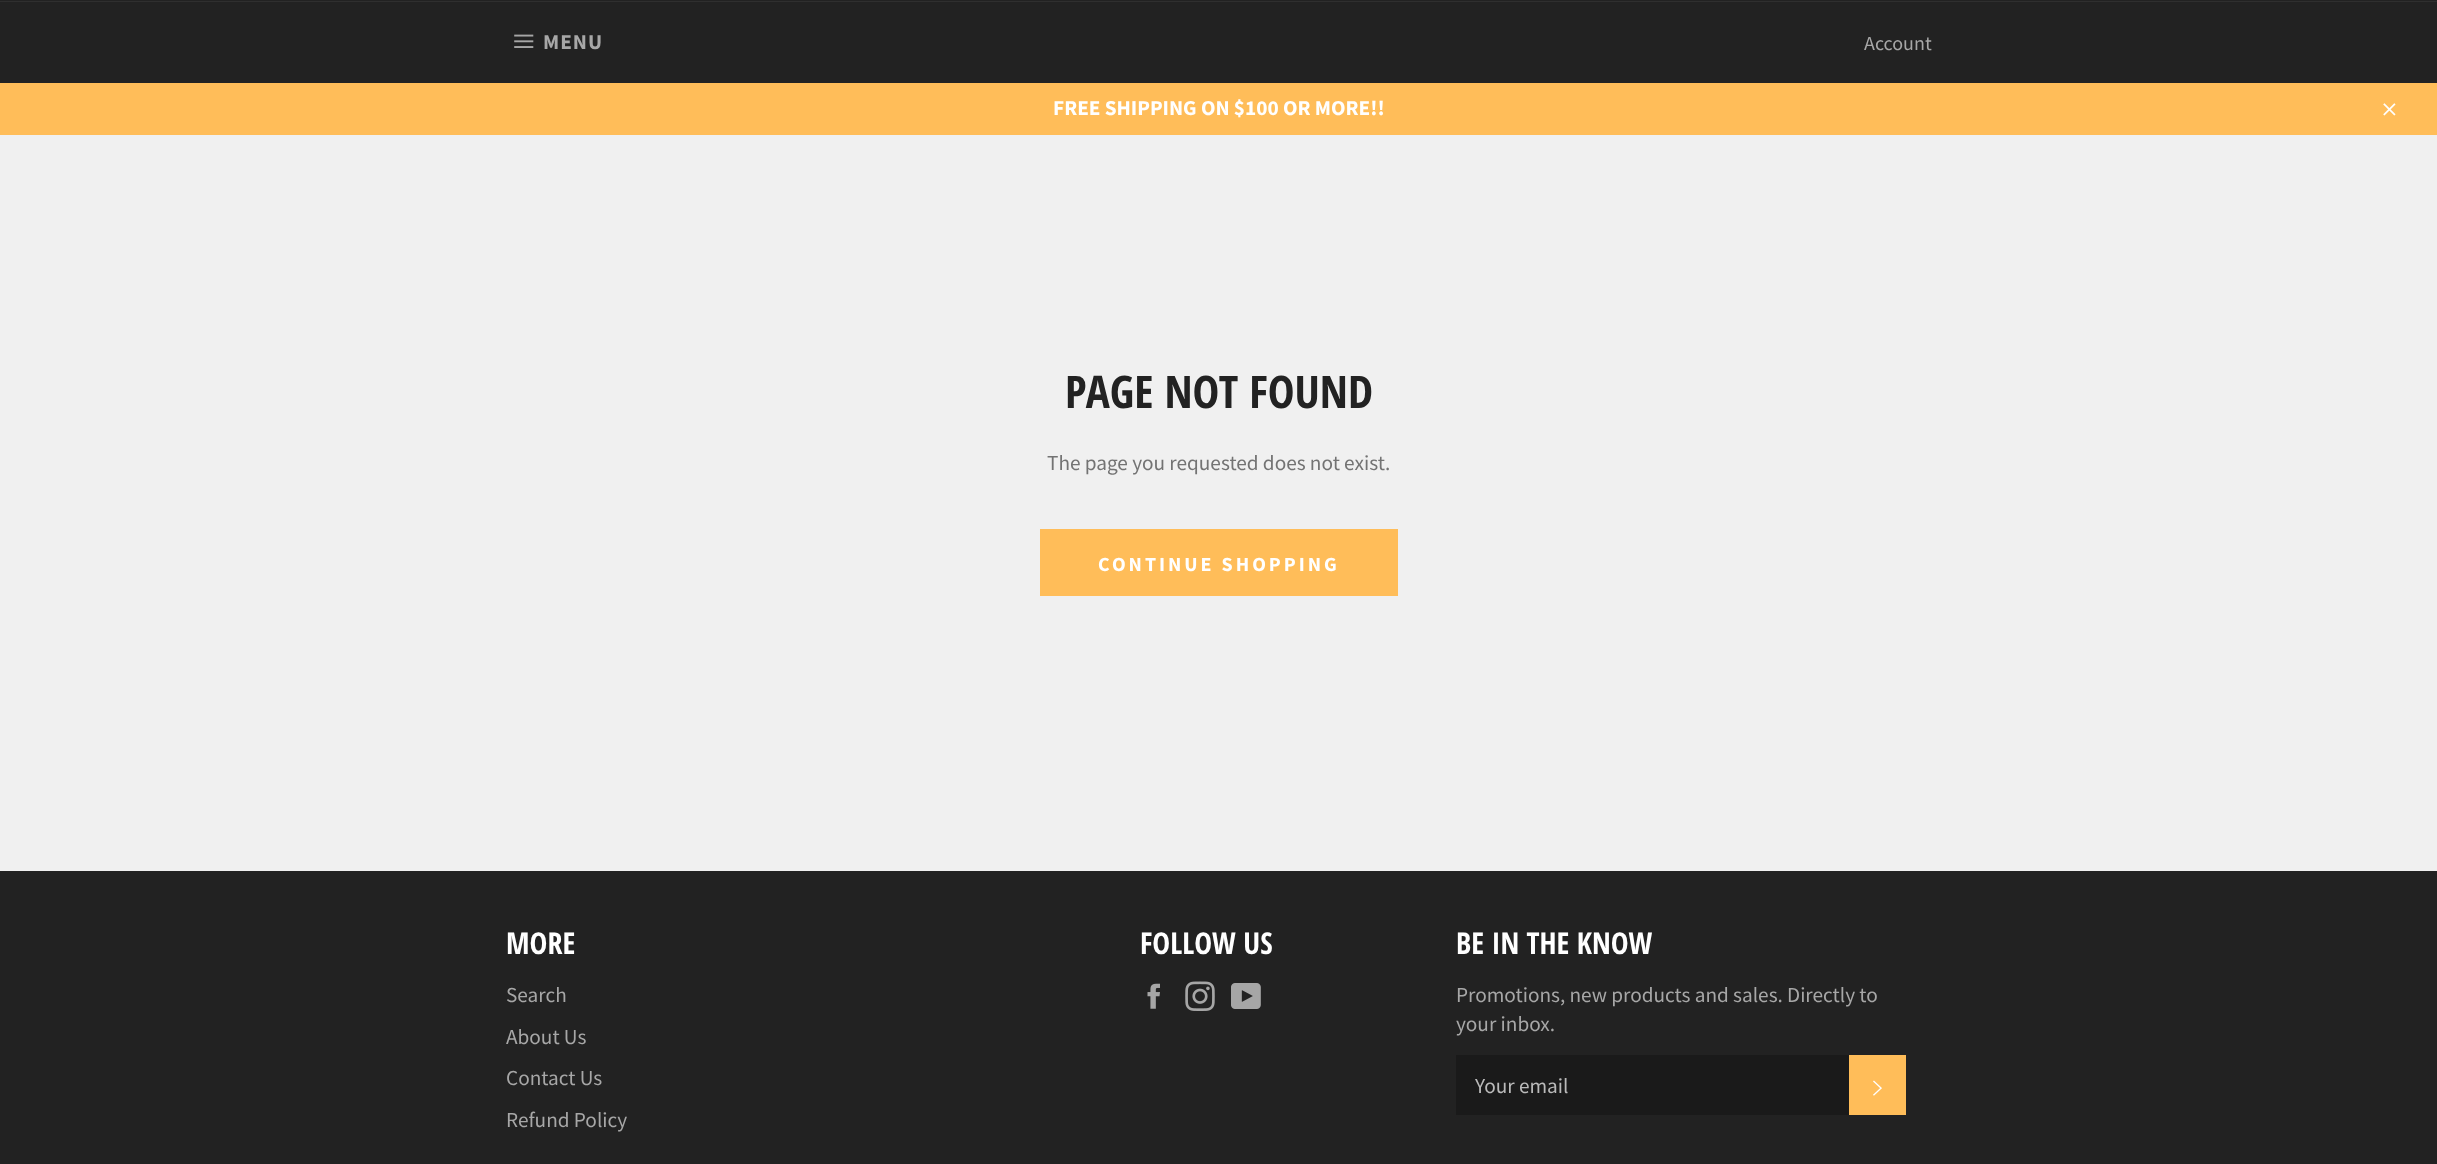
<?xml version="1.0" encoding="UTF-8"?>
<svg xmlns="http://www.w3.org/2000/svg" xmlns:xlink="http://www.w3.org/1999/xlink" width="2437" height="1164">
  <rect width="100%" height="100%" fill="#f0f0f0" />
  <rect width="2437" height="1" fill="#222222" />
  <rect y="2" width="2437" height="81" fill="#222222" />
  <rect y="1" width="2437" height="1" fill="#2f2f2f" />
  <image x="514" y="34" width="20" height="14" xlink:href="image1.png" />
  <rect y="83" width="2437" height="52" fill="#ffbd59" />
  <image x="2383" y="103" width="13" height="13" xlink:href="image2.png" />
  <rect x="1040" y="529" width="358" height="67" fill="#ffbd59" />
  <rect y="871" width="2437" height="293" fill="#222222" />
  <image x="1147" y="983" width="13" height="26" xlink:href="image3.png" />
  <image x="1185" y="981" width="30" height="30" xlink:href="image4.png" />
  <image x="1231" y="983" width="30" height="26" xlink:href="image5.png" />
  <rect x="1456" y="1055" width="393" height="60" fill="#1a1a1a" />
  <rect x="1849" y="1055" width="57" height="60" fill="#ffbd59" />
  <image x="1873" y="1080" width="9" height="16" xlink:href="image6.png" />
  <text x="543" y="49" style="font-family: Source Sans Pro; font-size: 21.25px; font-weight: bold; letter-spacing: 1px; fill: #a7a7a7">MENU</text>
  <text x="1864" y="50" style="font-family: Source Sans Pro; font-size: 20px; fill: #a7a7a7">Account</text>
  <text x="1053" y="115" style="font-family: Source Sans Pro; font-size: 21.25px; font-weight: bold; fill: #ffffff">FREE SHIPPING ON $100 OR MORE!!</text>
  <text x="1065" y="408" style="font-family: Open Sans Condensed; font-size: 45px; font-weight: bold; fill: #222222">PAGE NOT FOUND</text>
  <text x="1047" y="470" style="font-family: Source Sans Pro; font-size: 21.25px; fill: #737373">The page you requested does not exist.</text>
  <text x="1098" y="571" style="font-family: Source Sans Pro; font-size: 20px; font-weight: bold; letter-spacing: 3px; fill: #ffffff">CONTINUE SHOPPING</text>
  <text x="506" y="954" style="font-family: Open Sans Condensed; font-size: 30px; font-weight: bold; fill: #ffffff">MORE</text>
  <text x="506" y="1002" style="font-family: Source Sans Pro; font-size: 21.25px; fill: #a7a7a7">Search</text>
  <text x="506" y="1044" style="font-family: Source Sans Pro; font-size: 21.25px; fill: #a7a7a7">About Us</text>
  <text x="506" y="1085" style="font-family: Source Sans Pro; font-size: 21.25px; fill: #a7a7a7">Contact Us</text>
  <text x="506" y="1127" style="font-family: Source Sans Pro; font-size: 21.25px; fill: #a7a7a7">Refund Policy</text>
  <text x="1140" y="954" style="font-family: Open Sans Condensed; font-size: 30px; font-weight: bold; fill: #ffffff">FOLLOW US</text>
  <text x="1456" y="954" style="font-family: Open Sans Condensed; font-size: 30px; font-weight: bold; fill: #ffffff">BE IN THE KNOW</text>
  <text x="1456" y="1002" style="font-family: Source Sans Pro; font-size: 21.25px; fill: #a7a7a7">Promotions, new products and sales. Directly to</text>
  <text x="1456" y="1031" style="font-family: Source Sans Pro; font-size: 21.25px; fill: #a7a7a7">your inbox.</text>
  <text x="1475" y="1093" style="font-family: Source Sans Pro; font-size: 21.25px; fill: #bababa">Your email</text>
</svg>
